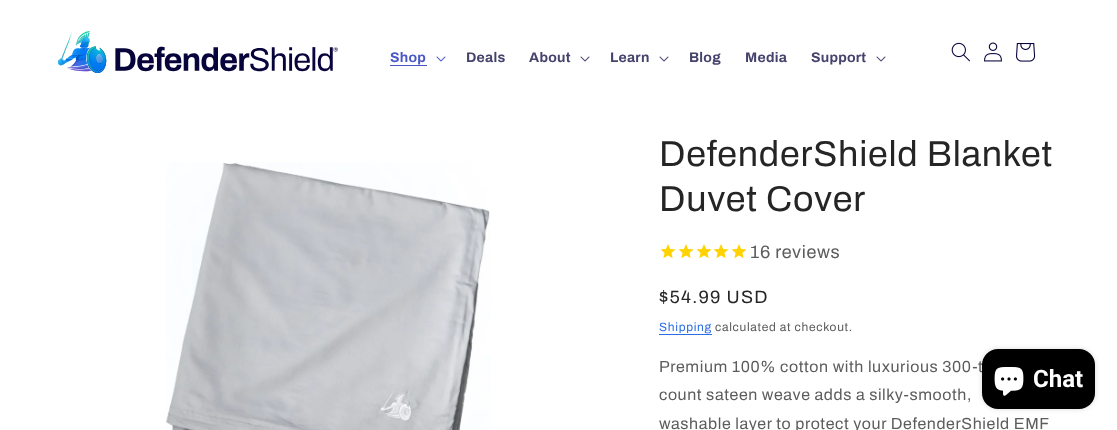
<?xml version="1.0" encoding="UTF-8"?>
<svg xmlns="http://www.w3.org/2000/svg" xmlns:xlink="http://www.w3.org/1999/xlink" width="1117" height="430">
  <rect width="100%" height="100%" fill="#ffffff" />
  <image x="58" y="31" width="280" height="42" xlink:href="image1.png" />
  <rect x="390" y="65" width="37" height="1" fill="#4a58c4" />
  <image x="436" y="56" width="10" height="6" xlink:href="image2.png" />
  <image x="580" y="56" width="10" height="6" xlink:href="image3.png" />
  <image x="659" y="56" width="10" height="6" xlink:href="image3.png" />
  <image x="876" y="56" width="10" height="6" xlink:href="image3.png" />
  <image x="951" y="42" width="19" height="20" xlink:href="image4.png" />
  <image x="984" y="42" width="18" height="20" xlink:href="image5.png" />
  <image x="1016" y="43" width="20" height="19" xlink:href="image6.png" />
  <image x="166" y="162" width="325" height="268" xlink:href="image7.png" />
  <image x="660" y="244" width="16" height="15" xlink:href="image8.png" />
  <image x="678" y="244" width="16" height="15" xlink:href="image8.png" />
  <image x="696" y="244" width="16" height="15" xlink:href="image8.png" />
  <image x="713" y="244" width="16" height="15" xlink:href="image8.png" />
  <image x="731" y="244" width="16" height="15" xlink:href="image8.png" />
  <rect x="659" y="334" width="53" height="1" fill="#2b6de4" />
  <rect x="982" y="349" width="113" height="60" rx="16" fill="#000000" fill-opacity="0.15" filter="blur(2.5px)" />
  <text x="390" y="62" style="font-family: Archivo; font-size: 14px; font-weight: bold; letter-spacing: 0.25px; fill: #4a58c4">Shop</text>
  <text x="466" y="62" style="font-family: Archivo; font-size: 14px; font-weight: bold; letter-spacing: 0.25px; fill: #45436d">Deals</text>
  <text x="529" y="62" style="font-family: Archivo; font-size: 14px; font-weight: bold; letter-spacing: 0.25px; fill: #45436d">About</text>
  <text x="610" y="62" style="font-family: Archivo; font-size: 14px; font-weight: bold; letter-spacing: 0.25px; fill: #45436d">Learn</text>
  <text x="689" y="62" style="font-family: Archivo; font-size: 14px; font-weight: bold; letter-spacing: 0.25px; fill: #45436d">Blog</text>
  <text x="745" y="62" style="font-family: Archivo; font-size: 14px; font-weight: bold; letter-spacing: 0.25px; fill: #45436d">Media</text>
  <text x="811" y="62" style="font-family: Archivo; font-size: 14px; font-weight: bold; letter-spacing: 0.25px; fill: #45436d">Support</text>
  <text x="659" y="166" style="font-family: Archivo; font-size: 36px; letter-spacing: 0.75px; fill: #252525">DefenderShield Blanket</text>
  <text x="659" y="211" style="font-family: Archivo; font-size: 36px; letter-spacing: 0.75px; fill: #252525">Duvet Cover</text>
  <text x="750" y="258" style="font-family: Archivo; font-size: 18px; letter-spacing: 0.6px; fill: #5c5c5c">16 reviews</text>
  <text x="659" y="303" style="font-family: Archivo; font-size: 18px; letter-spacing: 1.25px; fill: #252525">$54.99 USD</text>
  <text x="659" y="331" style="font-family: Archivo; font-size: 12px; letter-spacing: 0.7px; fill: #2b6de4">Shipping</text>
  <text x="715" y="331" style="font-family: Archivo; font-size: 12px; letter-spacing: 0.7px; fill: #5c5c5c">calculated at checkout.</text>
  <text x="659" y="372" style="font-family: Archivo; font-size: 16px; letter-spacing: 0.6px; fill: #5c5c5c">Premium 100% cotton with luxurious 300-t</text>
  <text x="659" y="400" style="font-family: Archivo; font-size: 16px; letter-spacing: 0.6px; fill: #5c5c5c">count sateen weave adds a silky-smooth,</text>
  <text x="659" y="429" style="font-family: Archivo; font-size: 16px; letter-spacing: 0.6px; fill: #5c5c5c">washable layer to protect your DefenderShield EMF</text>
  <rect x="982" y="349" width="113" height="60" rx="16" fill="#000000" />
  <image x="994" y="367" width="30" height="29" xlink:href="image9.png" />
  <text x="1033" y="387" style="font-family: Roboto; font-size: 24px; font-weight: bold; fill: #ffffff">Chat</text>
</svg>
